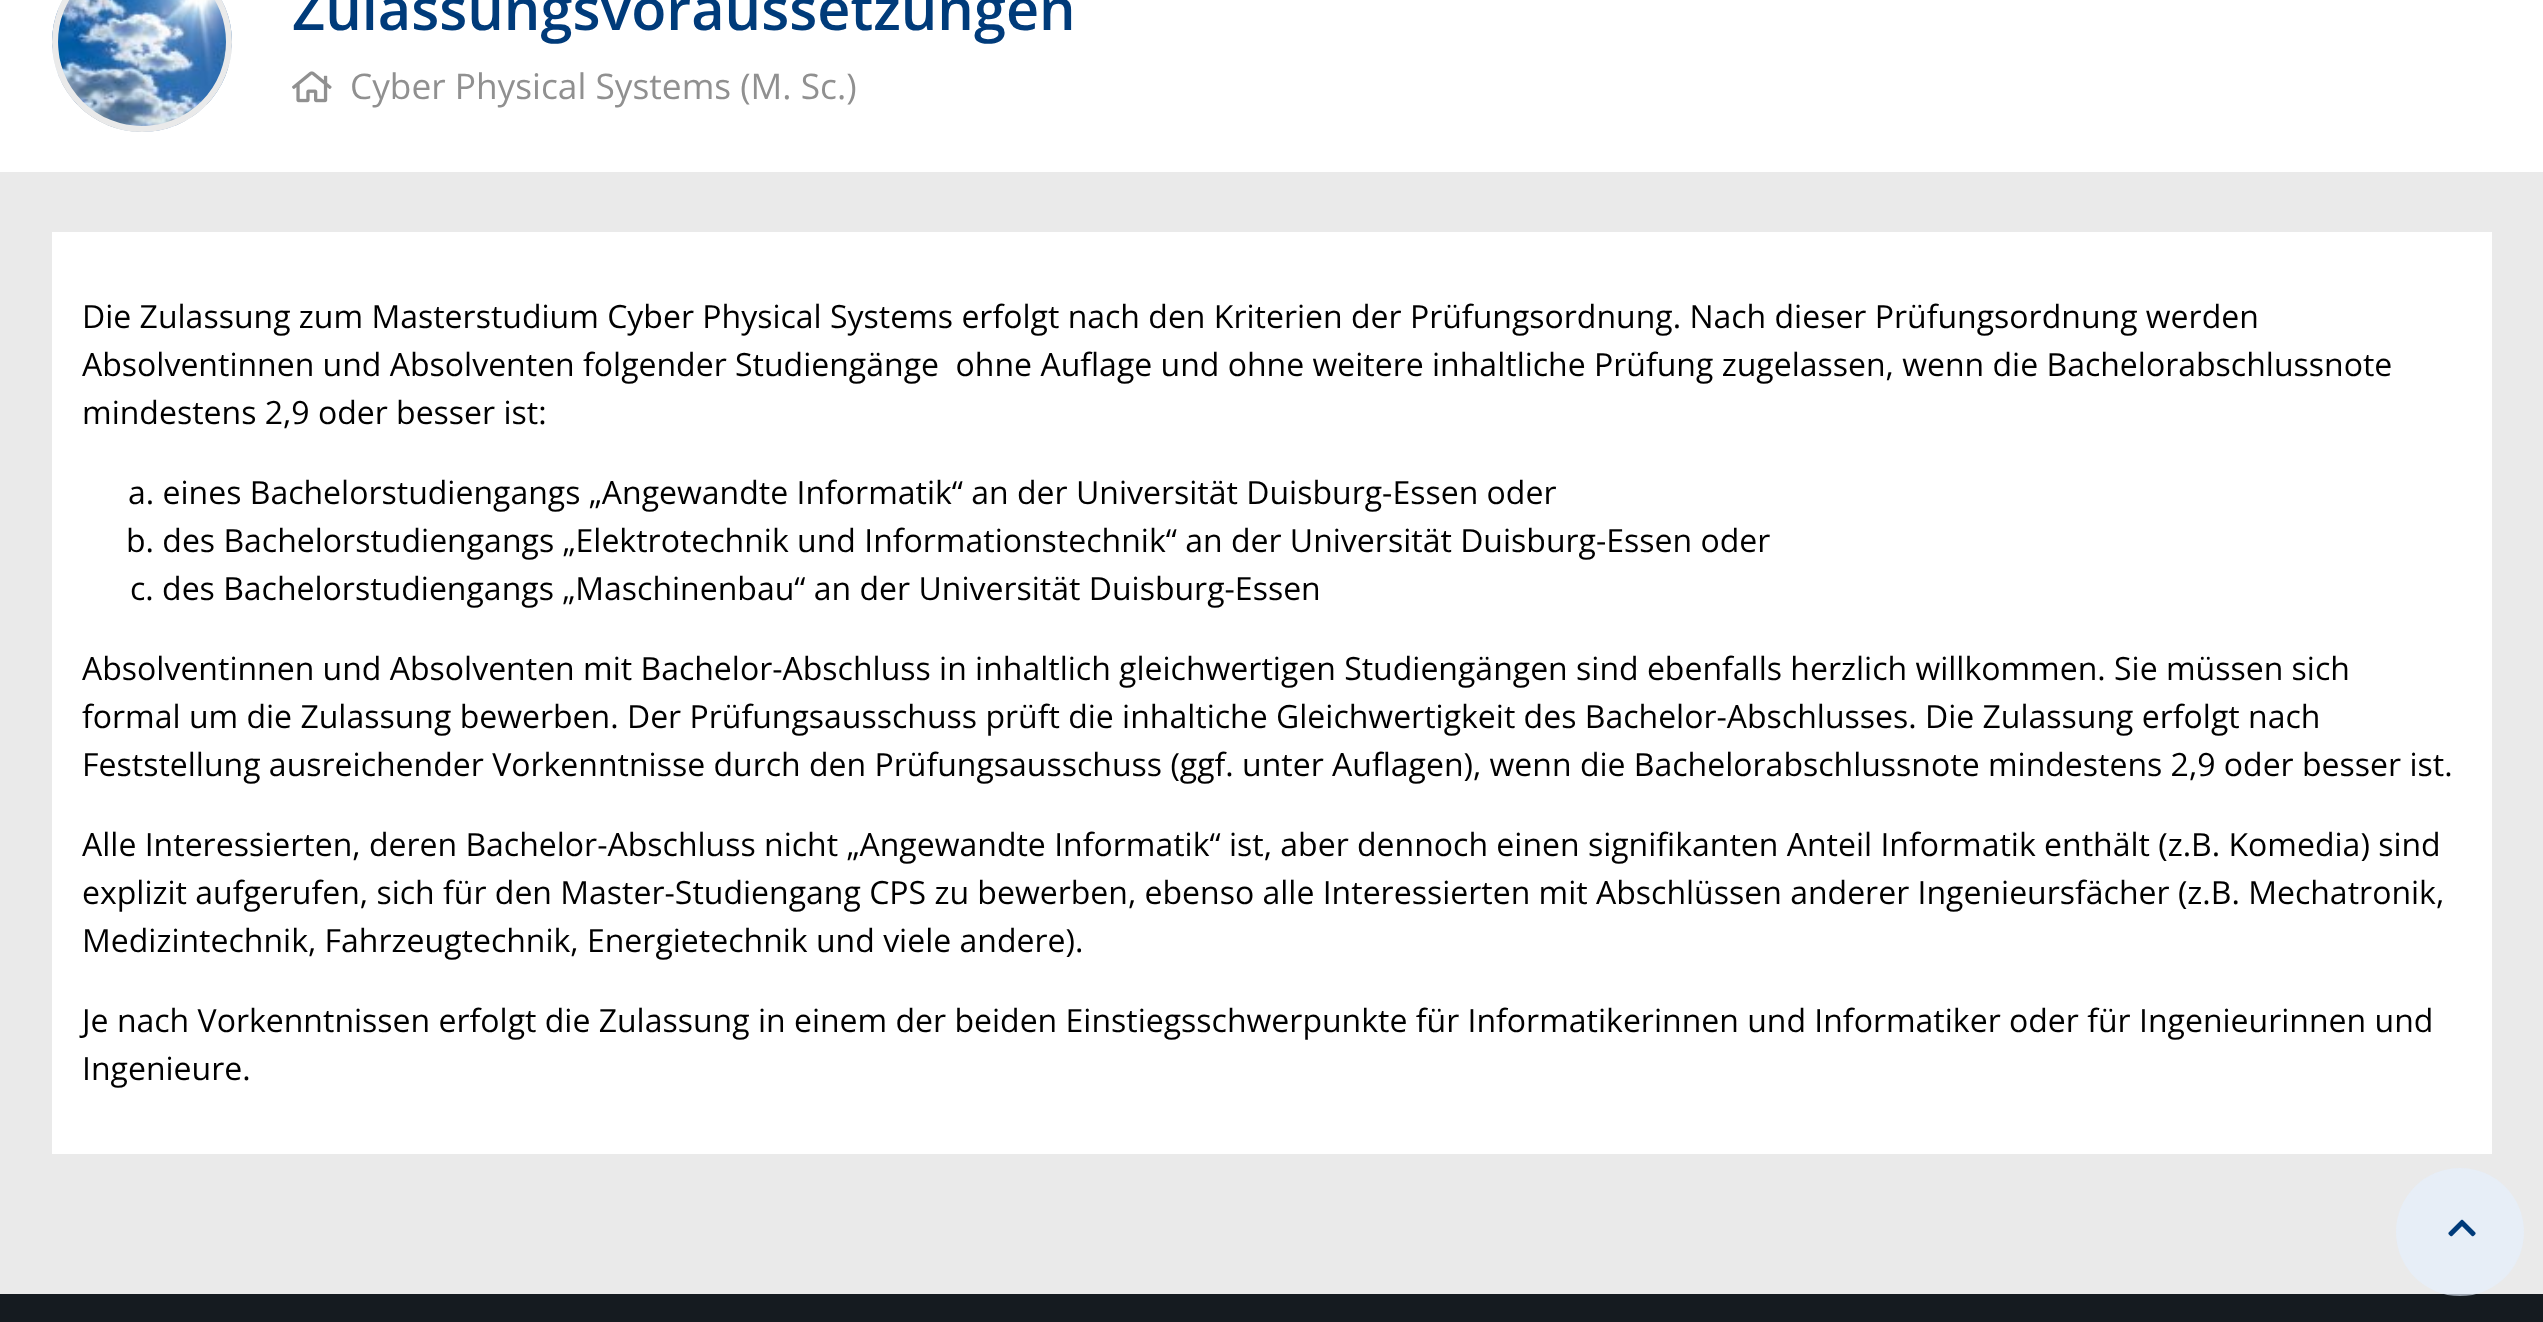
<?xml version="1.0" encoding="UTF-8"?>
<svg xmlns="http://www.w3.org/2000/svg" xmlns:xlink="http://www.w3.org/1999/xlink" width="2543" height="1322">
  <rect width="100%" height="100%" fill="#ffffff" />
  <image x="52" y="0" width="180" height="132" xlink:href="image1.png" />
  <circle cx="142" cy="42" r="87" fill="none" stroke="#eaeaea" stroke-width="6" />
  <image x="292" y="71" width="40" height="32" xlink:href="image2.png" />
  <rect y="172" width="2543" height="1122" fill="#eaeaea" />
  <rect x="52" y="232" width="2440" height="922" fill="#ffffff" />
  <rect y="1294" width="2543" height="28" fill="#151b20" />
  <circle cx="2460" cy="1232" r="64" fill="#e4f0ff" fill-opacity="0.6" />
  <image x="2448" y="1219" width="28" height="18" xlink:href="image3.png" />
  <text x="292" y="30" style="font-family: Open Sans; font-size: 57.6px; font-weight: 600; fill: #003b7a">Zulassungsvoraussetzungen</text>
  <text x="350" y="99" style="font-family: Open Sans; font-size: 35.25px; fill: #909090">Cyber Physical Systems (M. Sc.)</text>
  <text x="82" y="328" style="font-family: Open Sans; font-size: 32px; fill: #000000">Die Zulassung zum Masterstudium Cyber Physical Systems erfolgt nach den Kriterien der Prüfungsordnung. Nach dieser Prüfungsordnung werden</text>
  <text x="82" y="376" style="font-family: Open Sans; font-size: 32px; fill: #000000" xml:space="preserve">Absolventinnen und Absolventen folgender Studiengänge  ohne Auflage und ohne weitere inhaltliche Prüfung zugelassen, wenn die Bachelorabschlussnote</text>
  <text x="82" y="424" style="font-family: Open Sans; font-size: 32px; fill: #000000">mindestens 2,9 oder besser ist:</text>
  <text x="128" y="504" style="font-family: Open Sans; font-size: 32px; fill: #000000">a. eines Bachelorstudiengangs „Angewandte Informatik“ an der Universität Duisburg-Essen oder</text>
  <text x="126" y="552" style="font-family: Open Sans; font-size: 32px; fill: #000000">b. des Bachelorstudiengangs „Elektrotechnik und Informationstechnik“ an der Universität Duisburg-Essen oder</text>
  <text x="130" y="600" style="font-family: Open Sans; font-size: 32px; fill: #000000">c. des Bachelorstudiengangs „Maschinenbau“ an der Universität Duisburg-Essen</text>
  <text x="82" y="680" style="font-family: Open Sans; font-size: 32px; fill: #000000">Absolventinnen und Absolventen mit Bachelor-Abschluss in inhaltlich gleichwertigen Studiengängen sind ebenfalls herzlich willkommen. Sie müssen sich</text>
  <text x="82" y="728" style="font-family: Open Sans; font-size: 32px; fill: #000000">formal um die Zulassung bewerben. Der Prüfungsausschuss prüft die inhaltiche Gleichwertigkeit des Bachelor-Abschlusses. Die Zulassung erfolgt nach</text>
  <text x="82" y="776" style="font-family: Open Sans; font-size: 32px; fill: #000000">Feststellung ausreichender Vorkenntnisse durch den Prüfungsausschuss (ggf. unter Auflagen), wenn die Bachelorabschlussnote mindestens 2,9 oder besser ist.</text>
  <text x="82" y="856" style="font-family: Open Sans; font-size: 32px; fill: #000000">Alle Interessierten, deren Bachelor-Abschluss nicht „Angewandte Informatik“ ist, aber dennoch einen signifikanten Anteil Informatik enthält (z.B. Komedia) sind</text>
  <text x="82" y="904" style="font-family: Open Sans; font-size: 32px; fill: #000000">explizit aufgerufen, sich für den Master-Studiengang CPS zu bewerben, ebenso alle Interessierten mit Abschlüssen anderer Ingenieursfächer (z.B. Mechatronik,</text>
  <text x="82" y="952" style="font-family: Open Sans; font-size: 32px; fill: #000000">Medizintechnik, Fahrzeugtechnik, Energietechnik und viele andere).</text>
  <text x="82" y="1032" style="font-family: Open Sans; font-size: 32px; fill: #000000">Je nach Vorkenntnissen erfolgt die Zulassung in einem der beiden Einstiegsschwerpunkte für Informatikerinnen und Informatiker oder für Ingenieurinnen und</text>
  <text x="82" y="1080" style="font-family: Open Sans; font-size: 32px; fill: #000000">Ingenieure.</text>
</svg>
